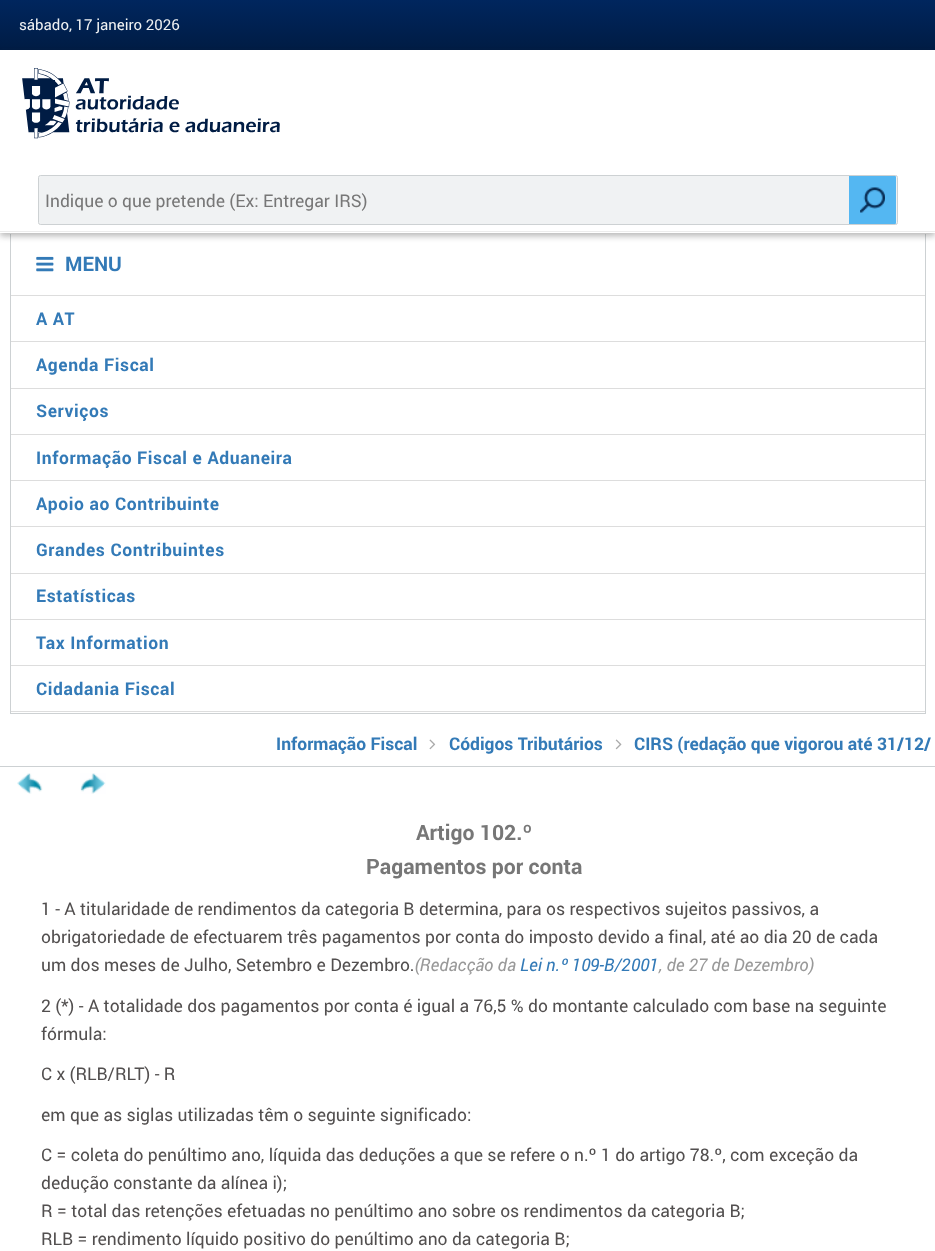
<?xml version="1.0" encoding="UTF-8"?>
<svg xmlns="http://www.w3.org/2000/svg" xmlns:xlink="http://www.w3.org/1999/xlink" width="935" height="1251">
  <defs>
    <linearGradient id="g1" gradientUnits="userSpaceOnUse" x1="468" y1="0" x2="468" y2="50"><stop offset="0" stop-color="#00265e" /><stop offset="1" stop-color="#001c44" /></linearGradient>
  </defs>
  <rect width="100%" height="100%" fill="#ffffff" />
  <rect width="935" height="50" fill="url(#g1)" />
  <rect x="925" y="234" width="1" height="480" fill="#cdd1d3" />
  <rect x="10" y="713" width="916" height="1" fill="#cdd1d3" />
  <rect x="10" y="234" width="1" height="480" fill="#cdd1d3" />
  <rect y="54" width="935" height="182" fill="#323232" fill-opacity="0.35" filter="blur(3px)" />
  <rect y="50" width="935" height="183" fill="#ffffff" />
  <rect y="231" width="935" height="1" fill="#ececec" />
  <image x="22" y="68" width="258" height="71" xlink:href="image1.png" />
  <rect x="38.5" y="175.5" width="859" height="49" rx="2" fill="#f0f2f3" stroke="#cdd1d3" />
  <path d="M 849 176 h 46 c 0.5 0 1 0.5 1 1 v 46 c 0 0.5 -0.5 1 -1 1 h -46 z" fill="#54b7f2" />
  <image x="860" y="187" width="25" height="26" xlink:href="image2.png" />
  <rect y="766" width="935" height="1" fill="#cdd1d3" />
  <image x="36" y="256" width="18" height="16" xlink:href="image3.png" />
  <rect x="11" y="295" width="914" height="1" fill="#dddddd" />
  <rect x="11" y="711" width="914" height="1" fill="#dddddd" />
  <rect x="11" y="341" width="914" height="1" fill="#dddddd" />
  <rect x="11" y="388" width="914" height="1" fill="#dddddd" />
  <rect x="11" y="434" width="914" height="1" fill="#dddddd" />
  <rect x="11" y="480" width="914" height="1" fill="#dddddd" />
  <rect x="11" y="526" width="914" height="1" fill="#dddddd" />
  <rect x="11" y="573" width="914" height="1" fill="#dddddd" />
  <rect x="11" y="619" width="914" height="1" fill="#dddddd" />
  <rect x="11" y="665" width="914" height="1" fill="#dddddd" />
  <image x="429" y="739" width="7" height="11" xlink:href="image4.png" />
  <image x="615" y="739" width="7" height="11" xlink:href="image5.png" />
  <image x="17" y="773" width="26" height="21" xlink:href="image6.png" />
  <image x="80" y="773" width="26" height="21" xlink:href="image7.png" />
  <text x="19" y="30" style="font-family: Roboto; font-size: 15px; fill: #f0f2f3">sábado, 17 janeiro 2026</text>
  <text x="45" y="207" style="font-family: Roboto; font-size: 17.5px; fill: #777777">Indique o que pretende (Ex: Entregar IRS)</text>
  <text x="65" y="271" style="font-family: Roboto; font-size: 20px; font-weight: bold; fill: #337ab7">MENU</text>
  <text x="36" y="325" style="font-family: Roboto; font-size: 17.5px; font-weight: bold; letter-spacing: 0.6px; fill: #337ab7">A AT</text>
  <text x="36" y="371" style="font-family: Roboto; font-size: 17.5px; font-weight: bold; letter-spacing: 0.6px; fill: #337ab7">Agenda Fiscal</text>
  <text x="36" y="417" style="font-family: Roboto; font-size: 17.5px; font-weight: bold; letter-spacing: 0.6px; fill: #337ab7">Serviços</text>
  <text x="36" y="464" style="font-family: Roboto; font-size: 17.5px; font-weight: bold; letter-spacing: 0.6px; fill: #337ab7">Informação Fiscal e Aduaneira</text>
  <text x="36" y="510" style="font-family: Roboto; font-size: 17.5px; font-weight: bold; letter-spacing: 0.6px; fill: #337ab7">Apoio ao Contribuinte</text>
  <text x="36" y="556" style="font-family: Roboto; font-size: 17.5px; font-weight: bold; letter-spacing: 0.6px; fill: #337ab7">Grandes Contribuintes</text>
  <text x="36" y="602" style="font-family: Roboto; font-size: 17.5px; font-weight: bold; letter-spacing: 0.6px; fill: #337ab7">Estatísticas</text>
  <text x="36" y="649" style="font-family: Roboto; font-size: 17.5px; font-weight: bold; letter-spacing: 0.6px; fill: #337ab7">Tax Information</text>
  <text x="36" y="695" style="font-family: Roboto; font-size: 17.5px; font-weight: bold; letter-spacing: 0.6px; fill: #337ab7">Cidadania Fiscal</text>
  <text x="276" y="750" style="font-family: Roboto; font-size: 17.5px; font-weight: bold; fill: #337ab7">Informação Fiscal</text>
  <text x="449" y="750" style="font-family: Roboto; font-size: 17.5px; font-weight: bold; fill: #337ab7">Códigos Tributários</text>
  <text x="634" y="750" style="font-family: Roboto; font-size: 17.5px; font-weight: bold; fill: #337ab7">CIRS (redação que vigorou até 31/12/</text>
  <text x="416" y="840" style="font-family: Roboto; font-size: 21.25px; font-weight: bold; fill: #777777">Artigo 102.º</text>
  <text x="366" y="874" style="font-family: Roboto; font-size: 21.25px; font-weight: bold; fill: #777777">Pagamentos por conta</text>
  <text x="41" y="915" style="font-family: Roboto; font-size: 17.5px; fill: #524f4f">1 - A titularidade de rendimentos da categoria B determina, para os respectivos sujeitos passivos, a</text>
  <text x="41" y="943" style="font-family: Roboto; font-size: 17.5px; fill: #524f4f">obrigatoriedade de efectuarem três pagamentos por conta do imposto devido a final, até ao dia 20 de cada</text>
  <text x="41" y="971" style="font-family: Roboto; font-size: 17.5px; fill: #524f4f">um dos meses de Julho, Setembro e Dezembro.</text>
  <text x="414" y="971" style="font-family: Roboto; font-size: 17.5px; font-style: italic; fill: #999999">(Redacção da</text>
  <text x="520" y="971" style="font-family: Roboto; font-size: 17.5px; font-style: italic; fill: #337ab7">Lei n.º 109-B/2001</text>
  <text x="659" y="971" style="font-family: Roboto; font-size: 17.5px; font-style: italic; fill: #999999">, de 27 de Dezembro)</text>
  <text x="41" y="1012" style="font-family: Roboto; font-size: 17.5px; fill: #524f4f">2 (*) - A totalidade dos pagamentos por conta é igual a 76,5 % do montante calculado com base na seguinte</text>
  <text x="41" y="1040" style="font-family: Roboto; font-size: 17.5px; fill: #524f4f">fórmula:</text>
  <text x="41" y="1080" style="font-family: Roboto; font-size: 17.5px; fill: #524f4f">C x (RLB/RLT) - R</text>
  <text x="41" y="1121" style="font-family: Roboto; font-size: 17.5px; fill: #524f4f">em que as siglas utilizadas têm o seguinte significado:</text>
  <text x="41" y="1161" style="font-family: Roboto; font-size: 17.5px; fill: #524f4f">C = coleta do penúltimo ano, líquida das deduções a que se refere o n.º 1 do artigo 78.º, com exceção da</text>
  <text x="41" y="1189" style="font-family: Roboto; font-size: 17.5px; fill: #524f4f">dedução constante da alínea i);</text>
  <text x="41" y="1217" style="font-family: Roboto; font-size: 17.5px; fill: #524f4f">R = total das retenções efetuadas no penúltimo ano sobre os rendimentos da categoria B;</text>
  <text x="41" y="1245" style="font-family: Roboto; font-size: 17.5px; fill: #524f4f">RLB = rendimento líquido positivo do penúltimo ano da categoria B;</text>
</svg>
